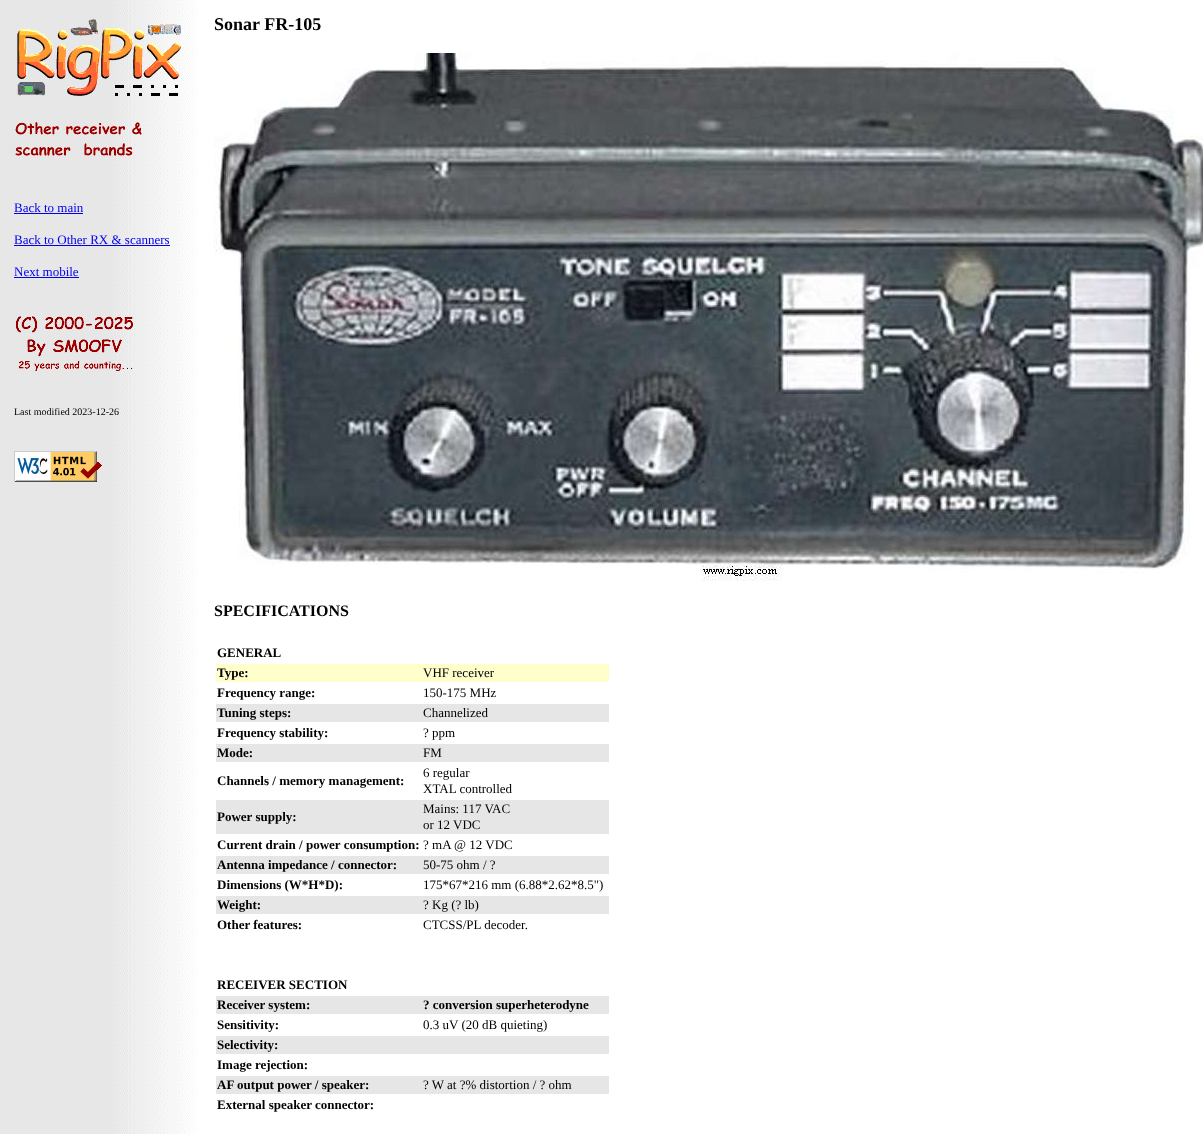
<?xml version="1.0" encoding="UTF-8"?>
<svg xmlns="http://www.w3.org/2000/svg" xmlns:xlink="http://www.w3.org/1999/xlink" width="1203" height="1134">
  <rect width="100%" height="100%" fill="#ffffff" />
  <image x="0" y="0" width="198" height="1134" xlink:href="image1.png" />
  <image x="17" y="19" width="164" height="77" xlink:href="image2.png" />
  <image x="15" y="122" width="127" height="34" xlink:href="image3.png" />
  <rect x="14" y="213" width="69" height="1" fill="#0000ee" />
  <rect x="14" y="245" width="156" height="1" fill="#0000ee" />
  <rect x="14" y="277" width="65" height="1" fill="#0000ee" />
  <image x="15" y="316" width="118" height="55" xlink:href="image4.png" />
  <image x="14" y="451" width="88" height="31" xlink:href="image5.png" />
  <image x="214" y="53" width="989" height="528" xlink:href="image6.png" />
  <rect x="216" y="664" width="393" height="18" fill="#ffffcc" />
  <rect x="216" y="704" width="393" height="18" fill="#e6e6e6" />
  <rect x="216" y="744" width="393" height="18" fill="#e6e6e6" />
  <rect x="216" y="800" width="393" height="34" fill="#e6e6e6" />
  <rect x="216" y="856" width="393" height="18" fill="#e6e6e6" />
  <rect x="216" y="896" width="393" height="18" fill="#e6e6e6" />
  <rect x="216" y="996" width="393" height="18" fill="#e6e6e6" />
  <rect x="216" y="1036" width="393" height="18" fill="#e6e6e6" />
  <rect x="216" y="1076" width="393" height="18" fill="#e6e6e6" />
  <text x="14" y="212" style="font-family: Liberation Serif; font-size: 13px; fill: #0000ee">Back to main</text>
  <text x="14" y="244" style="font-family: Liberation Serif; font-size: 13px; fill: #0000ee">Back to Other RX &amp; scanners</text>
  <text x="14" y="276" style="font-family: Liberation Serif; font-size: 13px; fill: #0000ee">Next mobile</text>
  <text x="14" y="415" style="font-family: Liberation Serif; font-size: 10px; fill: #000000">Last modified 2023-12-26</text>
  <text x="214" y="30" style="font-family: Liberation Serif; font-size: 18px; font-weight: bold; fill: #000000">Sonar FR-105</text>
  <text x="214" y="616" style="font-family: Liberation Serif; font-size: 16px; font-weight: bold; fill: #000000">SPECIFICATIONS</text>
  <text x="217" y="657" style="font-family: Liberation Serif; font-size: 13px; font-weight: bold; fill: #000000">GENERAL</text>
  <text x="217" y="677" style="font-family: Liberation Serif; font-size: 13px; font-weight: bold; fill: #000000">Type:</text>
  <text x="423" y="677" style="font-family: Liberation Serif; font-size: 13px; fill: #000000">VHF receiver</text>
  <text x="217" y="697" style="font-family: Liberation Serif; font-size: 13px; font-weight: bold; fill: #000000">Frequency range:</text>
  <text x="423" y="697" style="font-family: Liberation Serif; font-size: 13px; fill: #000000">150-175 MHz</text>
  <text x="217" y="717" style="font-family: Liberation Serif; font-size: 13px; font-weight: bold; fill: #000000">Tuning steps:</text>
  <text x="423" y="717" style="font-family: Liberation Serif; font-size: 13px; fill: #000000">Channelized</text>
  <text x="217" y="737" style="font-family: Liberation Serif; font-size: 13px; font-weight: bold; fill: #000000">Frequency stability:</text>
  <text x="423" y="737" style="font-family: Liberation Serif; font-size: 13px; fill: #000000">? ppm</text>
  <text x="217" y="757" style="font-family: Liberation Serif; font-size: 13px; font-weight: bold; fill: #000000">Mode:</text>
  <text x="423" y="757" style="font-family: Liberation Serif; font-size: 13px; fill: #000000">FM</text>
  <text x="217" y="785" style="font-family: Liberation Serif; font-size: 13px; font-weight: bold; fill: #000000">Channels / memory management:</text>
  <text x="423" y="777" style="font-family: Liberation Serif; font-size: 13px; fill: #000000">6 regular</text>
  <text x="423" y="793" style="font-family: Liberation Serif; font-size: 13px; fill: #000000">XTAL controlled</text>
  <text x="217" y="821" style="font-family: Liberation Serif; font-size: 13px; font-weight: bold; fill: #000000">Power supply:</text>
  <text x="423" y="813" style="font-family: Liberation Serif; font-size: 13px; fill: #000000">Mains: 117 VAC</text>
  <text x="423" y="829" style="font-family: Liberation Serif; font-size: 13px; fill: #000000">or 12 VDC</text>
  <text x="217" y="849" style="font-family: Liberation Serif; font-size: 13px; font-weight: bold; fill: #000000">Current drain / power consumption:</text>
  <text x="423" y="849" style="font-family: Liberation Serif; font-size: 13px; fill: #000000">? mA @ 12 VDC</text>
  <text x="217" y="869" style="font-family: Liberation Serif; font-size: 13px; font-weight: bold; fill: #000000">Antenna impedance / connector:</text>
  <text x="423" y="869" style="font-family: Liberation Serif; font-size: 13px; fill: #000000">50-75 ohm / ?</text>
  <text x="217" y="889" style="font-family: Liberation Serif; font-size: 13px; font-weight: bold; fill: #000000">Dimensions (W*H*D):</text>
  <text x="423" y="889" style="font-family: Liberation Serif; font-size: 13px; fill: #000000">175*67*216 mm (6.88*2.62*8.5")</text>
  <text x="217" y="909" style="font-family: Liberation Serif; font-size: 13px; font-weight: bold; fill: #000000">Weight:</text>
  <text x="423" y="909" style="font-family: Liberation Serif; font-size: 13px; fill: #000000">? Kg (? lb)</text>
  <text x="217" y="929" style="font-family: Liberation Serif; font-size: 13px; font-weight: bold; fill: #000000">Other features:</text>
  <text x="423" y="929" style="font-family: Liberation Serif; font-size: 13px; fill: #000000">CTCSS/PL decoder.</text>
  <text x="217" y="989" style="font-family: Liberation Serif; font-size: 13px; font-weight: bold; fill: #000000">RECEIVER SECTION</text>
  <text x="217" y="1009" style="font-family: Liberation Serif; font-size: 13px; font-weight: bold; fill: #000000">Receiver system:</text>
  <text x="423" y="1009" style="font-family: Liberation Serif; font-size: 13px; font-weight: bold; fill: #000000">? conversion superheterodyne</text>
  <text x="217" y="1029" style="font-family: Liberation Serif; font-size: 13px; font-weight: bold; fill: #000000">Sensitivity:</text>
  <text x="423" y="1029" style="font-family: Liberation Serif; font-size: 13px; fill: #000000">0.3 uV (20 dB quieting)</text>
  <text x="217" y="1049" style="font-family: Liberation Serif; font-size: 13px; font-weight: bold; fill: #000000">Selectivity:</text>
  <text x="217" y="1069" style="font-family: Liberation Serif; font-size: 13px; font-weight: bold; fill: #000000">Image rejection:</text>
  <text x="217" y="1089" style="font-family: Liberation Serif; font-size: 13px; font-weight: bold; fill: #000000">AF output power / speaker:</text>
  <text x="423" y="1089" style="font-family: Liberation Serif; font-size: 13px; fill: #000000">? W at ?% distortion / ? ohm</text>
  <text x="217" y="1109" style="font-family: Liberation Serif; font-size: 13px; font-weight: bold; fill: #000000">External speaker connector:</text>
</svg>
